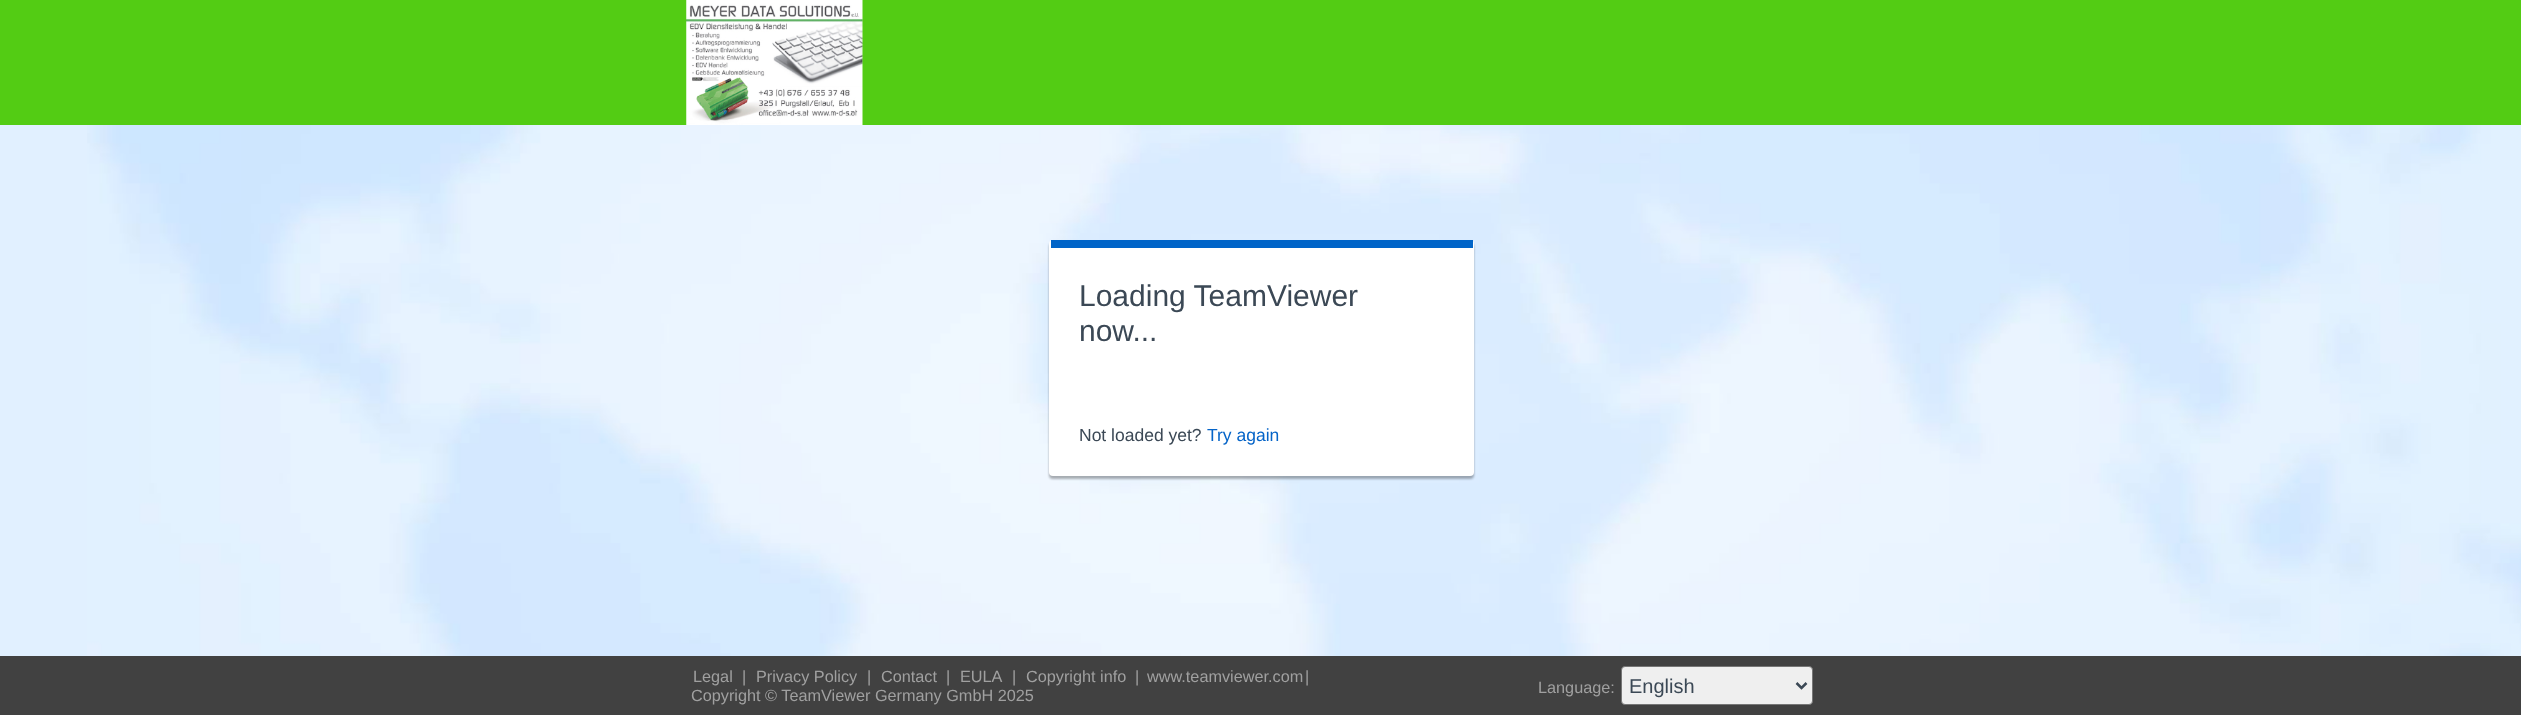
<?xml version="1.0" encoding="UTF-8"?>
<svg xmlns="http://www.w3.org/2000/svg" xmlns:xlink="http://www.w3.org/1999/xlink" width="2521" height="715">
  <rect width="100%" height="100%" fill="#e1f0ff" />
  <rect width="2521" height="125" fill="#53cc14" />
  <image x="686" y="0" width="177" height="125" xlink:href="image1.png" />
  <image x="87" y="125" width="2434" height="531" xlink:href="image2.png" />
  <rect x="1049" y="243" width="425" height="236" rx="4" fill="#000000" fill-opacity="0.3" filter="blur(1px)" />
  <rect x="1049" y="240" width="425" height="236" rx="4" fill="#ffffff" />
  <rect x="1051" y="240" width="422" height="8" fill="#0064c8" />
  <rect y="656" width="2521" height="59" fill="#414141" />
  <rect x="1621.5" y="666.5" width="191" height="38" rx="3.5" fill="#efefef" stroke="#767676" />
  <path d="M 1796.5 683 l 5 5 l 5 -5" fill="none" stroke="#3b4855" stroke-width="2.5" />
  <text x="1079" y="306" style="font-family: Liberation Sans; font-size: 30px; fill: #3b4855">Loading TeamViewer</text>
  <text x="1079" y="341" style="font-family: Liberation Sans; font-size: 30px; fill: #3b4855">now...</text>
  <text x="1079" y="441" style="font-family: Liberation Sans; font-size: 17.5px; fill: #3b4855">Not loaded yet?</text>
  <text x="1207" y="441" style="font-family: Liberation Sans; font-size: 17.5px; fill: #0564c8">Try again</text>
  <text x="693" y="682" style="font-family: Liberation Sans; font-size: 16.25px; fill: #a0a0a0">Legal</text>
  <text x="742" y="682" style="font-family: Liberation Sans; font-size: 16.25px; fill: #a0a0a0">|</text>
  <text x="756" y="682" style="font-family: Liberation Sans; font-size: 16.25px; fill: #a0a0a0">Privacy Policy</text>
  <text x="867" y="682" style="font-family: Liberation Sans; font-size: 16.25px; fill: #a0a0a0">|</text>
  <text x="881" y="682" style="font-family: Liberation Sans; font-size: 16.25px; fill: #a0a0a0">Contact</text>
  <text x="946" y="682" style="font-family: Liberation Sans; font-size: 16.25px; fill: #a0a0a0">|</text>
  <text x="960" y="682" style="font-family: Liberation Sans; font-size: 16.25px; fill: #a0a0a0">EULA</text>
  <text x="1012" y="682" style="font-family: Liberation Sans; font-size: 16.25px; fill: #a0a0a0">|</text>
  <text x="1026" y="682" style="font-family: Liberation Sans; font-size: 16.25px; fill: #a0a0a0">Copyright info</text>
  <text x="1135" y="682" style="font-family: Liberation Sans; font-size: 16.25px; fill: #a0a0a0">|</text>
  <text x="1147" y="682" style="font-family: Liberation Sans; font-size: 16.25px; fill: #a0a0a0">www.teamviewer.com</text>
  <text x="1305" y="682" style="font-family: Liberation Sans; font-size: 16.25px; fill: #a0a0a0">|</text>
  <text x="691" y="701" style="font-family: Liberation Sans; font-size: 16.25px; fill: #a0a0a0">Copyright © TeamViewer Germany GmbH 2025</text>
  <text x="1538" y="693" style="font-family: Liberation Sans; font-size: 16.25px; fill: #a0a0a0">Language:</text>
  <text x="1629" y="693" style="font-family: Liberation Sans; font-size: 20px; fill: #3b4855">English</text>
</svg>
